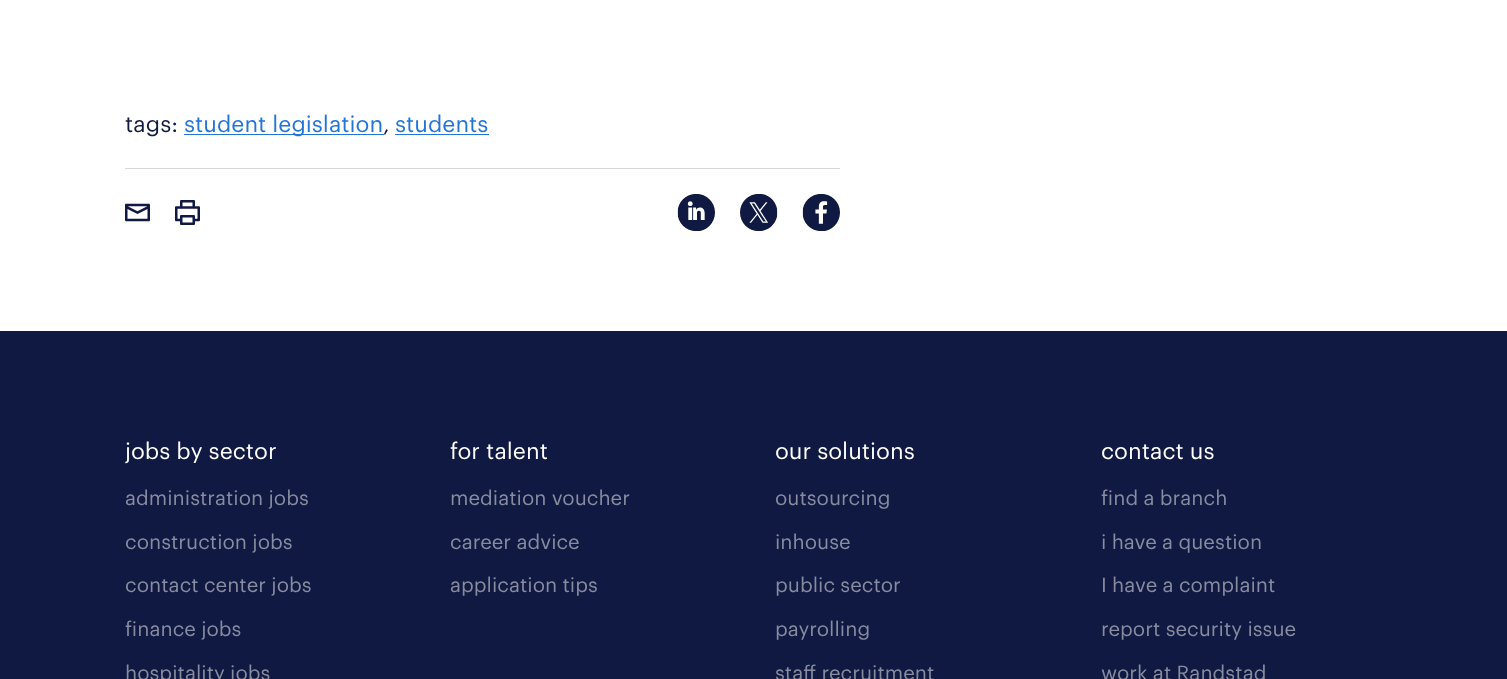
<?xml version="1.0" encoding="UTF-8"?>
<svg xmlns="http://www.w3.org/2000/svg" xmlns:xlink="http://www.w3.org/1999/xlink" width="1507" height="679">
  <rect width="100%" height="100%" fill="#ffffff" />
  <rect x="184" y="134" width="200" height="1" fill="#2175d9" />
  <rect x="395" y="134" width="94" height="1" fill="#2175d9" />
  <rect x="125" y="168" width="715" height="1" fill="#d7d7d7" />
  <image x="125" y="203" width="25" height="19" xlink:href="image1.png" />
  <image x="175" y="200" width="25" height="25" xlink:href="image2.png" />
  <image x="677" y="194" width="38" height="37" xlink:href="image3.png" />
  <image x="740" y="194" width="38" height="37" xlink:href="image4.png" />
  <image x="802" y="194" width="38" height="37" xlink:href="image5.png" />
  <rect y="331" width="1507" height="348" fill="#0f1941" />
  <text x="125" y="132" style="font-family: Graphik; font-size: 22.5px; fill: #0f1941">tags:</text>
  <text x="184" y="132" style="font-family: Graphik; font-size: 22.5px; fill: #2175d9">student legislation</text>
  <text x="383" y="132" style="font-family: Graphik; font-size: 22.5px; fill: #0f1941">,</text>
  <text x="395" y="132" style="font-family: Graphik; font-size: 22.5px; fill: #2175d9">students</text>
  <text x="125" y="459" style="font-family: Graphik; font-size: 22.5px; fill: #ffffff">jobs by sector</text>
  <text x="125" y="505" style="font-family: Graphik; font-size: 20px; fill: #878ca0">administration jobs</text>
  <text x="125" y="549" style="font-family: Graphik; font-size: 20px; fill: #878ca0">construction jobs</text>
  <text x="125" y="592" style="font-family: Graphik; font-size: 20px; fill: #878ca0">contact center jobs</text>
  <text x="125" y="636" style="font-family: Graphik; font-size: 20px; fill: #878ca0">finance jobs</text>
  <text x="125" y="680" style="font-family: Graphik; font-size: 20px; fill: #878ca0">hospitality jobs</text>
  <text x="450" y="459" style="font-family: Graphik; font-size: 22.5px; fill: #ffffff">for talent</text>
  <text x="450" y="505" style="font-family: Graphik; font-size: 20px; fill: #878ca0">mediation voucher</text>
  <text x="450" y="549" style="font-family: Graphik; font-size: 20px; fill: #878ca0">career advice</text>
  <text x="450" y="592" style="font-family: Graphik; font-size: 20px; fill: #878ca0">application tips</text>
  <text x="775" y="459" style="font-family: Graphik; font-size: 22.5px; fill: #ffffff">our solutions</text>
  <text x="775" y="505" style="font-family: Graphik; font-size: 20px; fill: #878ca0">outsourcing</text>
  <text x="775" y="549" style="font-family: Graphik; font-size: 20px; fill: #878ca0">inhouse</text>
  <text x="775" y="592" style="font-family: Graphik; font-size: 20px; fill: #878ca0">public sector</text>
  <text x="775" y="636" style="font-family: Graphik; font-size: 20px; fill: #878ca0">payrolling</text>
  <text x="775" y="680" style="font-family: Graphik; font-size: 20px; fill: #878ca0">staff recruitment</text>
  <text x="1101" y="459" style="font-family: Graphik; font-size: 22.5px; fill: #ffffff">contact us</text>
  <text x="1101" y="505" style="font-family: Graphik; font-size: 20px; fill: #878ca0">find a branch</text>
  <text x="1101" y="549" style="font-family: Graphik; font-size: 20px; fill: #878ca0">i have a question</text>
  <text x="1101" y="592" style="font-family: Graphik; font-size: 20px; fill: #878ca0">I have a complaint</text>
  <text x="1101" y="636" style="font-family: Graphik; font-size: 20px; fill: #878ca0">report security issue</text>
  <text x="1101" y="680" style="font-family: Graphik; font-size: 20px; fill: #878ca0">work at Randstad</text>
</svg>
